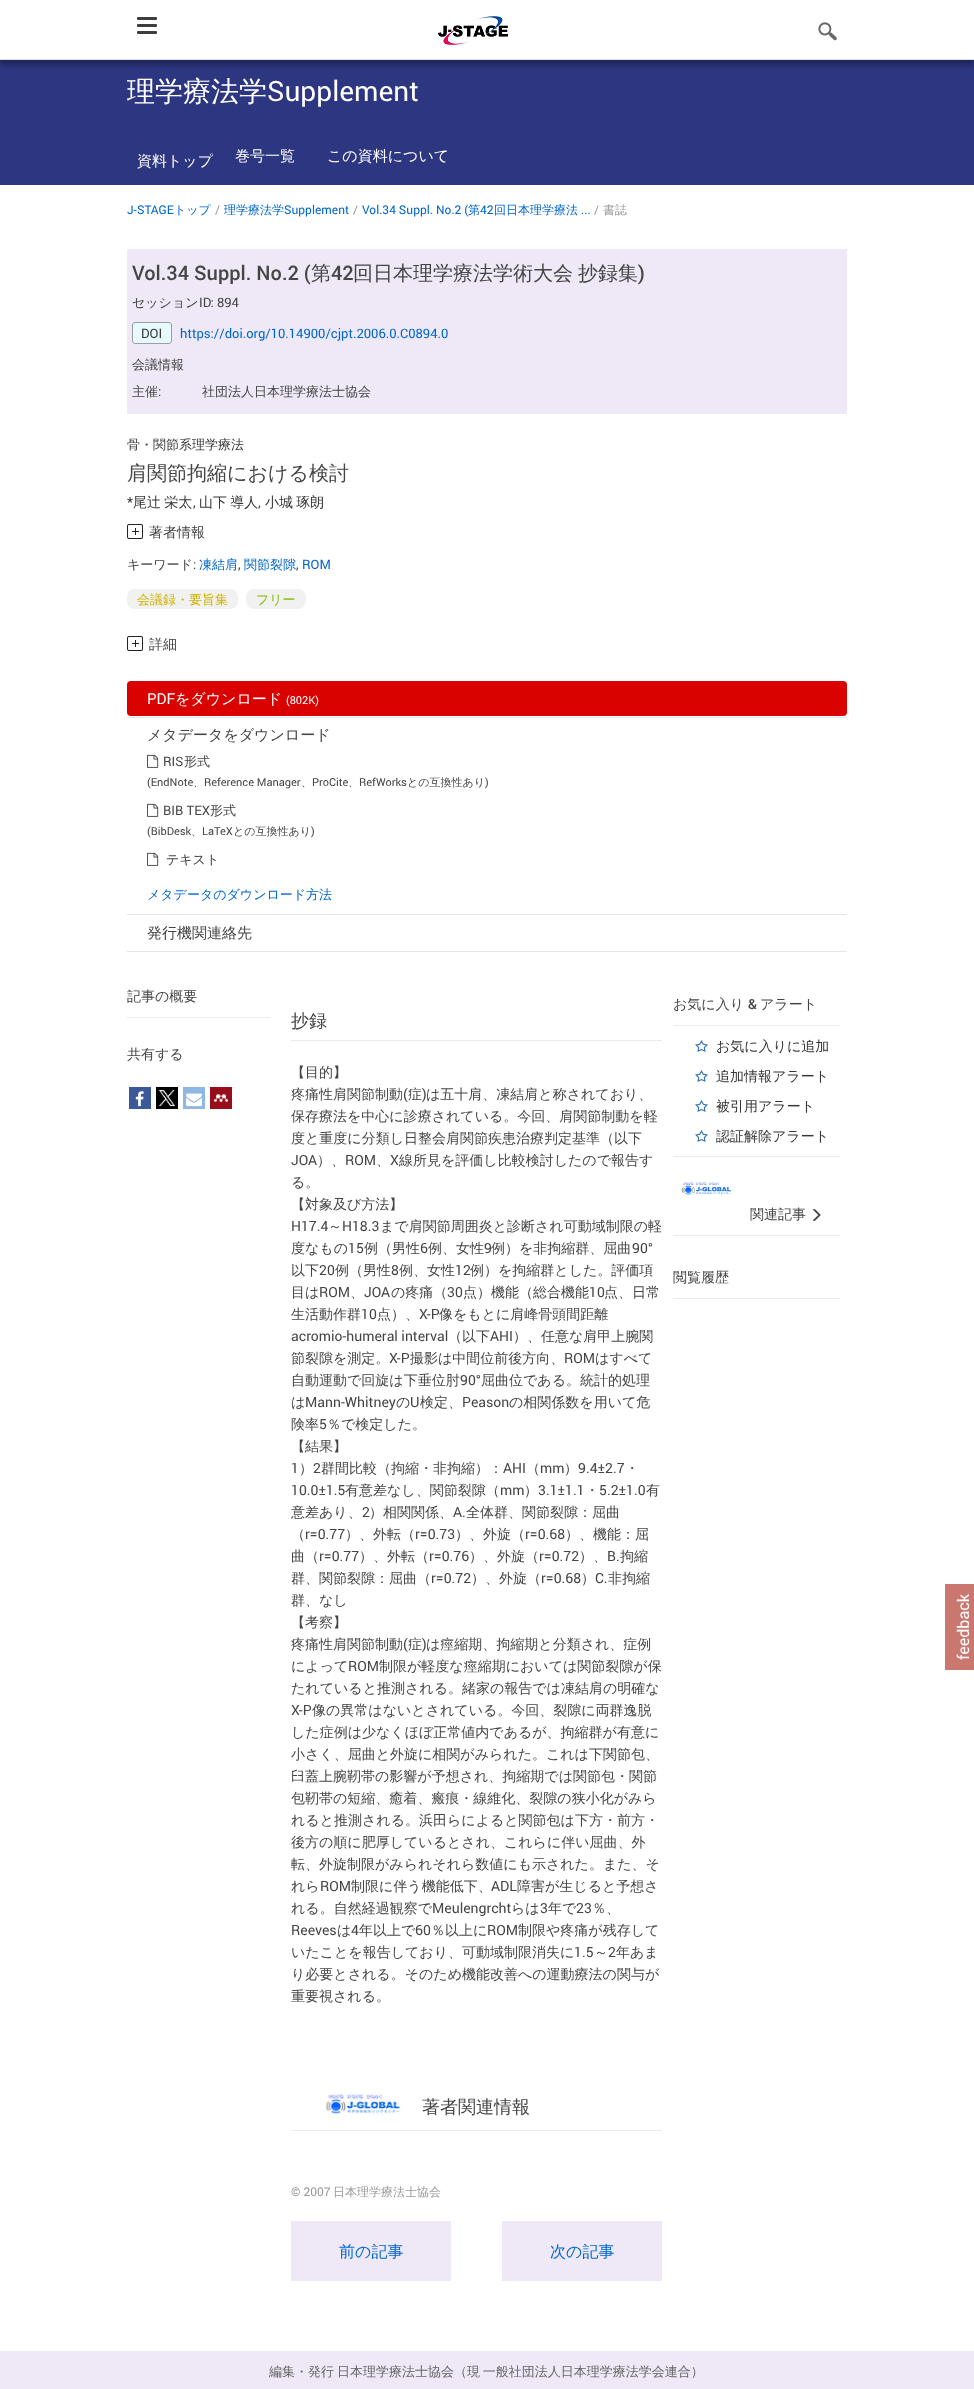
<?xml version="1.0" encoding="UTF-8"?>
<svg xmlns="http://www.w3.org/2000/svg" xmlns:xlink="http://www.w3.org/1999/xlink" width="974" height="2389">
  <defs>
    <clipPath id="clip1"><rect x="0" y="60" width="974" height="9" /></clipPath>
  </defs>
  <rect width="100%" height="100%" fill="#ffffff" />
  <rect y="60" width="974" height="125" fill="#2d3680" />
  <g clip-path="url(#clip1)">
    <rect y="5" width="974" height="60" fill="#000000" fill-opacity="0.3" filter="blur(2.5px)" />
  </g>
  <rect y="59" width="974" height="1" fill="#e0e0e0" />
  <rect x="137" y="17" width="20" height="3" rx="1" fill="#3d3d3d" />
  <rect x="137" y="24" width="20" height="3" rx="1" fill="#3d3d3d" />
  <rect x="137" y="31" width="20" height="3" rx="1" fill="#3d3d3d" />
  <image x="438" y="16" width="70" height="29" xlink:href="image1.png" />
  <image x="818" y="22" width="19" height="19" xlink:href="image2.png" />
  <rect x="127" y="249" width="720" height="165" fill="#eee8f7" />
  <rect x="132.5" y="322.5" width="39" height="21" rx="2.5" fill="#e7fbfe" stroke="#9e9e9e" />
  <image x="127" y="524" width="16" height="15" xlink:href="image3.png" />
  <rect x="127" y="589" width="111" height="20" rx="8" fill="#f1f1f1" />
  <rect x="246" y="589" width="60" height="20" rx="8" fill="#f1f1f1" />
  <image x="127" y="636" width="16" height="15" xlink:href="image3.png" />
  <rect x="127" y="681" width="720" height="35" rx="4" fill="#d90200" />
  <rect x="127" y="717" width="720" height="1" fill="#e6e6e6" />
  <rect x="127" y="914" width="720" height="1" fill="#e6e6e6" />
  <image x="147" y="754" width="12" height="14" xlink:href="image4.png" />
  <image x="147" y="803" width="12" height="14" xlink:href="image4.png" />
  <image x="147" y="852" width="12" height="14" xlink:href="image4.png" />
  <rect x="127" y="951" width="720" height="1" fill="#e6e6e6" />
  <rect x="127" y="1017" width="144" height="1" fill="#ebebeb" />
  <rect x="129" y="1087" width="22" height="22" fill="#3b5999" />
  <image x="135" y="1091" width="9" height="16" xlink:href="image5.png" />
  <rect x="156" y="1087" width="22" height="22" fill="#000000" />
  <image x="159" y="1090" width="16" height="16" xlink:href="image6.png" />
  <rect x="183" y="1087" width="22" height="22" fill="#8fb7e3" />
  <image x="186" y="1093" width="16" height="14" xlink:href="image7.png" />
  <rect x="210" y="1087" width="22" height="22" fill="#970d1a" />
  <image x="213" y="1094" width="16" height="8" xlink:href="image8.png" />
  <rect x="291" y="1040" width="371" height="1" fill="#ebebeb" />
  <rect x="291" y="2130" width="371" height="1" fill="#ebebeb" />
  <image x="325" y="2092" width="77" height="23" xlink:href="image9.png" />
  <rect x="291" y="2221" width="160" height="60" fill="#eee8f7" />
  <rect x="502" y="2221" width="160" height="60" fill="#eee8f7" />
  <rect x="673" y="1025" width="167" height="1" fill="#ebebeb" />
  <rect x="673" y="1156" width="167" height="1" fill="#ebebeb" />
  <image x="695" y="1040" width="13" height="12" xlink:href="image10.png" />
  <image x="695" y="1070" width="13" height="12" xlink:href="image10.png" />
  <image x="695" y="1100" width="13" height="12" xlink:href="image10.png" />
  <image x="695" y="1130" width="13" height="12" xlink:href="image10.png" />
  <rect x="673" y="1235" width="167" height="1" fill="#ebebeb" />
  <image x="681" y="1181" width="51" height="14" xlink:href="image11.png" />
  <image x="812" y="1209" width="9" height="12" xlink:href="image12.png" />
  <rect x="673" y="1298" width="167" height="1" fill="#ebebeb" />
  <rect x="945" y="1584" width="29" height="86" fill="#ca7770" />
  <rect y="2351" width="974" height="38" fill="#eee8f7" />
  <text x="127" y="101" style="font-family: WenQuanYi Zen Hei; font-size: 28px; font-weight: 500; fill: #ffffff">理学療法学</text>
  <text x="267" y="101" style="font-family: Roboto; font-size: 28px; fill: #ffffff">Supplement</text>
  <text x="137" y="166" style="font-family: WenQuanYi Zen Hei; font-size: 15px; font-weight: 500; fill: #ffffff">資料トップ</text>
  <text x="235" y="161" style="font-family: WenQuanYi Zen Hei; font-size: 15px; font-weight: 500; fill: #ffffff">巻号一覧</text>
  <text x="327" y="161" style="font-family: WenQuanYi Zen Hei; font-size: 15px; font-weight: 500; fill: #ffffff">この資料について</text>
  <text x="127" y="214" style="font-family: Roboto; font-size: 12px; fill: #0066cc">J-STAGE</text>
  <text x="174" y="214" style="font-family: WenQuanYi Zen Hei; font-size: 12px; font-weight: 500; fill: #0066cc">トップ</text>
  <text x="215" y="214" style="font-family: Roboto; font-size: 12px; fill: #999999">/</text>
  <text x="224" y="214" style="font-family: WenQuanYi Zen Hei; font-size: 12px; font-weight: 500; fill: #0066cc">理学療法学</text>
  <text x="284" y="214" style="font-family: Roboto; font-size: 12px; fill: #0066cc">Supplement</text>
  <text x="353" y="214" style="font-family: Roboto; font-size: 12px; fill: #999999">/</text>
  <text x="362" y="214" style="font-family: Roboto; font-size: 12px; fill: #0066cc">Vol.34 Suppl. No.2 (</text>
  <text x="468" y="214" style="font-family: WenQuanYi Zen Hei; font-size: 12px; font-weight: 500; fill: #0066cc">第</text>
  <text x="480" y="214" style="font-family: Roboto; font-size: 12px; fill: #0066cc">42</text>
  <text x="494" y="214" style="font-family: WenQuanYi Zen Hei; font-size: 12px; font-weight: 500; fill: #0066cc">回日本理学療法</text>
  <text x="581" y="214" style="font-family: Roboto; font-size: 12px; fill: #0066cc">...</text>
  <text x="594" y="214" style="font-family: Roboto; font-size: 12px; fill: #999999">/</text>
  <text x="603" y="214" style="font-family: WenQuanYi Zen Hei; font-size: 12px; font-weight: 500; fill: #999999">書誌</text>
  <text x="132" y="280" style="font-family: Roboto; font-size: 20px; font-weight: 500; fill: #454545">Vol.34 Suppl. No.2 (</text>
  <text x="311" y="280" style="font-family: WenQuanYi Zen Hei; font-size: 20px; font-weight: 500; fill: #454545">第</text>
  <text x="331" y="280" style="font-family: Roboto; font-size: 20px; font-weight: 500; fill: #454545">42</text>
  <text x="353" y="280" style="font-family: WenQuanYi Zen Hei; font-size: 20px; font-weight: 500; fill: #454545">回日本理学療法学術大会</text>
  <text x="578" y="280" style="font-family: WenQuanYi Zen Hei; font-size: 20px; font-weight: 500; fill: #454545">抄録集</text>
  <text x="638" y="280" style="font-family: Roboto; font-size: 20px; font-weight: 500; fill: #454545">)</text>
  <text x="132" y="307" style="font-family: WenQuanYi Zen Hei; font-size: 13px; font-weight: 500; fill: #454545">セッション</text>
  <text x="199" y="307" style="font-family: Roboto; font-size: 13px; fill: #454545">ID: 894</text>
  <text x="141" y="338" style="font-family: Roboto; font-size: 13px; fill: #363636">DOI</text>
  <text x="180" y="338" style="font-family: Roboto; font-size: 13px; fill: #0066cc">https://doi.org/10.14900/cjpt.2006.0.C0894.0</text>
  <text x="132" y="369" style="font-family: WenQuanYi Zen Hei; font-size: 13px; font-weight: 500; fill: #454545">会議情報</text>
  <text x="132" y="396" style="font-family: WenQuanYi Zen Hei; font-size: 13px; font-weight: 500; fill: #454545">主催</text>
  <text x="158" y="396" style="font-family: Roboto; font-size: 13px; fill: #454545">:</text>
  <text x="202" y="396" style="font-family: WenQuanYi Zen Hei; font-size: 13px; font-weight: 500; fill: #454545">社団法人日本理学療法士協会</text>
  <text x="127" y="449" style="font-family: WenQuanYi Zen Hei; font-size: 13px; font-weight: 500; fill: #363636">骨・関節系理学療法</text>
  <text x="127" y="480" style="font-family: WenQuanYi Zen Hei; font-size: 20px; font-weight: 500; fill: #454545">肩関節拘縮における検討</text>
  <text x="127" y="507" style="font-family: Roboto; font-size: 14px; fill: #363636">*</text>
  <text x="133" y="507" word-spacing="-1" style="font-family: WenQuanYi Zen Hei; font-size: 14px; font-weight: 500; fill: #363636">尾辻 栄太</text>
  <text x="199" y="507" word-spacing="-1" style="font-family: WenQuanYi Zen Hei; font-size: 14px; font-weight: 500; fill: #363636">山下 導人</text>
  <text x="265" y="507" word-spacing="-1" style="font-family: WenQuanYi Zen Hei; font-size: 14px; font-weight: 500; fill: #363636">小城 琢朗</text>
  <text x="193" y="507" style="font-family: Roboto; font-size: 14px; fill: #454545">,</text>
  <text x="258" y="507" style="font-family: Roboto; font-size: 14px; fill: #454545">,</text>
  <text x="149" y="537" style="font-family: WenQuanYi Zen Hei; font-size: 14px; font-weight: 500; fill: #454545">著者情報</text>
  <text x="127" y="569" style="font-family: WenQuanYi Zen Hei; font-size: 13px; font-weight: 500; fill: #454545">キーワード</text>
  <text x="193" y="569" style="font-family: Roboto; font-size: 13px; fill: #454545">:</text>
  <text x="199" y="569" style="font-family: WenQuanYi Zen Hei; font-size: 13px; font-weight: 500; fill: #0066cc">凍結肩</text>
  <text x="238" y="569" style="font-family: Roboto; font-size: 13px; fill: #454545">,</text>
  <text x="244" y="569" style="font-family: WenQuanYi Zen Hei; font-size: 13px; font-weight: 500; fill: #0066cc">関節裂隙</text>
  <text x="296" y="569" style="font-family: Roboto; font-size: 13px; fill: #454545">,</text>
  <text x="302" y="569" style="font-family: Roboto; font-size: 13px; fill: #0066cc">ROM</text>
  <text x="137" y="604" style="font-family: WenQuanYi Zen Hei; font-size: 13px; font-weight: 500; fill: #ceb301">会議録・要旨集</text>
  <text x="256" y="604" style="font-family: WenQuanYi Zen Hei; font-size: 13px; font-weight: 500; fill: #7fba00">フリー</text>
  <text x="149" y="649" style="font-family: WenQuanYi Zen Hei; font-size: 14px; font-weight: 500; fill: #454545">詳細</text>
  <text x="147" y="704" style="font-family: Roboto; font-size: 15px; fill: #ffffff">PDF</text>
  <text x="175" y="704" style="font-family: WenQuanYi Zen Hei; font-size: 15px; font-weight: 500; fill: #ffffff">をダウンロード</text>
  <text x="286" y="704" style="font-family: Roboto; font-size: 11px; fill: #ffffff">(802K)</text>
  <text x="147" y="740" style="font-family: WenQuanYi Zen Hei; font-size: 15px; font-weight: 500; fill: #454545">メタデータをダウンロード</text>
  <text x="163" y="766" style="font-family: Roboto; font-size: 13px; fill: #454545">RIS</text>
  <text x="184" y="766" style="font-family: WenQuanYi Zen Hei; font-size: 13px; font-weight: 500; fill: #454545">形式</text>
  <text x="147" y="786" style="font-family: Roboto; font-size: 11px; fill: #454545">(EndNote</text>
  <text x="193" y="786" style="font-family: WenQuanYi Zen Hei; font-size: 11px; font-weight: 500; fill: #454545">、</text>
  <text x="204" y="786" style="font-family: Roboto; font-size: 11px; fill: #454545">Reference Manager</text>
  <text x="301" y="786" style="font-family: WenQuanYi Zen Hei; font-size: 11px; font-weight: 500; fill: #454545">、</text>
  <text x="312" y="786" style="font-family: Roboto; font-size: 11px; fill: #454545">ProCite</text>
  <text x="348" y="786" style="font-family: WenQuanYi Zen Hei; font-size: 11px; font-weight: 500; fill: #454545">、</text>
  <text x="359" y="786" style="font-family: Roboto; font-size: 11px; fill: #454545">RefWorks</text>
  <text x="407" y="786" style="font-family: WenQuanYi Zen Hei; font-size: 11px; font-weight: 500; fill: #454545">との互換性あり</text>
  <text x="485" y="786" style="font-family: Roboto; font-size: 11px; fill: #454545">)</text>
  <text x="163" y="815" style="font-family: Roboto; font-size: 13px; fill: #454545">BIB TEX</text>
  <text x="210" y="815" style="font-family: WenQuanYi Zen Hei; font-size: 13px; font-weight: 500; fill: #454545">形式</text>
  <text x="147" y="835" style="font-family: Roboto; font-size: 11px; fill: #454545">(BibDesk</text>
  <text x="191" y="835" style="font-family: WenQuanYi Zen Hei; font-size: 11px; font-weight: 500; fill: #454545">、</text>
  <text x="202" y="835" style="font-family: Roboto; font-size: 11px; fill: #454545">LaTeX</text>
  <text x="233" y="835" style="font-family: WenQuanYi Zen Hei; font-size: 11px; font-weight: 500; fill: #454545">との互換性あり</text>
  <text x="311" y="835" style="font-family: Roboto; font-size: 11px; fill: #454545">)</text>
  <text x="166" y="864" style="font-family: WenQuanYi Zen Hei; font-size: 13px; font-weight: 500; fill: #454545">テキスト</text>
  <text x="147" y="899" style="font-family: WenQuanYi Zen Hei; font-size: 13px; font-weight: 500; fill: #0066cc">メタデータのダウンロード方法</text>
  <text x="147" y="938" style="font-family: WenQuanYi Zen Hei; font-size: 15px; font-weight: 500; fill: #454545">発行機関連絡先</text>
  <text x="127" y="1001" style="font-family: WenQuanYi Zen Hei; font-size: 14px; font-weight: 500; fill: #454545">記事の概要</text>
  <text x="127" y="1059" style="font-family: WenQuanYi Zen Hei; font-size: 14px; font-weight: 500; fill: #454545">共有する</text>
  <text x="291" y="1027" style="font-family: WenQuanYi Zen Hei; font-size: 18px; font-weight: 500; fill: #454545">抄録</text>
  <text x="291" y="1077" style="font-family: WenQuanYi Zen Hei; font-size: 14px; font-weight: 500; fill: #454545">【目的】</text>
  <text x="291" y="1099" style="font-family: WenQuanYi Zen Hei; font-size: 14px; font-weight: 500; fill: #454545">疼痛性肩関節制動</text>
  <text x="403" y="1099" style="font-family: Roboto; font-size: 14px; fill: #454545">(</text>
  <text x="408" y="1099" style="font-family: WenQuanYi Zen Hei; font-size: 14px; font-weight: 500; fill: #454545">症</text>
  <text x="422" y="1099" style="font-family: Roboto; font-size: 14px; fill: #454545">)</text>
  <text x="426" y="1099" style="font-family: WenQuanYi Zen Hei; font-size: 14px; font-weight: 500; fill: #454545">は五十肩、凍結肩と称されており、</text>
  <text x="291" y="1121" style="font-family: WenQuanYi Zen Hei; font-size: 14px; font-weight: 500; fill: #454545">保存療法を中心に診療されている。今回、肩関節制動を軽</text>
  <text x="291" y="1143" style="font-family: WenQuanYi Zen Hei; font-size: 14px; font-weight: 500; fill: #454545">度と重度に分類し日整会肩関節疾患治療判定基準（以下</text>
  <text x="291" y="1165" style="font-family: Roboto; font-size: 14px; fill: #454545">JOA</text>
  <text x="317" y="1165" style="font-family: WenQuanYi Zen Hei; font-size: 14px; font-weight: 500; fill: #454545">）、</text>
  <text x="345" y="1165" style="font-family: Roboto; font-size: 14px; fill: #454545">ROM</text>
  <text x="376" y="1165" style="font-family: WenQuanYi Zen Hei; font-size: 14px; font-weight: 500; fill: #454545">、</text>
  <text x="390" y="1165" style="font-family: Roboto; font-size: 14px; fill: #454545">X</text>
  <text x="399" y="1165" style="font-family: WenQuanYi Zen Hei; font-size: 14px; font-weight: 500; fill: #454545">線所見を評価し比較検討したので報告す</text>
  <text x="291" y="1187" style="font-family: WenQuanYi Zen Hei; font-size: 14px; font-weight: 500; fill: #454545">る。</text>
  <text x="291" y="1209" style="font-family: WenQuanYi Zen Hei; font-size: 14px; font-weight: 500; fill: #454545">【対象及び方法】</text>
  <text x="291" y="1231" style="font-family: Roboto; font-size: 14px; fill: #454545">H17.4</text>
  <text x="328" y="1231" style="font-family: WenQuanYi Zen Hei; font-size: 14px; font-weight: 500; fill: #454545">～</text>
  <text x="342" y="1231" style="font-family: Roboto; font-size: 14px; fill: #454545">H18.3</text>
  <text x="380" y="1231" style="font-family: WenQuanYi Zen Hei; font-size: 14px; font-weight: 500; fill: #454545">まで肩関節周囲炎と診断され可動域制限の軽</text>
  <text x="291" y="1253" style="font-family: WenQuanYi Zen Hei; font-size: 14px; font-weight: 500; fill: #454545">度なもの</text>
  <text x="348" y="1253" style="font-family: Roboto; font-size: 14px; fill: #454545">15</text>
  <text x="364" y="1253" style="font-family: WenQuanYi Zen Hei; font-size: 14px; font-weight: 500; fill: #454545">例（男性</text>
  <text x="420" y="1253" style="font-family: Roboto; font-size: 14px; fill: #454545">6</text>
  <text x="428" y="1253" style="font-family: WenQuanYi Zen Hei; font-size: 14px; font-weight: 500; fill: #454545">例、女性</text>
  <text x="484" y="1253" style="font-family: Roboto; font-size: 14px; fill: #454545">9</text>
  <text x="491" y="1253" style="font-family: WenQuanYi Zen Hei; font-size: 14px; font-weight: 500; fill: #454545">例）を非拘縮群、屈曲</text>
  <text x="632" y="1253" style="font-family: Roboto; font-size: 14px; fill: #454545">90°</text>
  <text x="291" y="1275" style="font-family: WenQuanYi Zen Hei; font-size: 14px; font-weight: 500; fill: #454545">以下</text>
  <text x="319" y="1275" style="font-family: Roboto; font-size: 14px; fill: #454545">20</text>
  <text x="335" y="1275" style="font-family: WenQuanYi Zen Hei; font-size: 14px; font-weight: 500; fill: #454545">例（男性</text>
  <text x="391" y="1275" style="font-family: Roboto; font-size: 14px; fill: #454545">8</text>
  <text x="399" y="1275" style="font-family: WenQuanYi Zen Hei; font-size: 14px; font-weight: 500; fill: #454545">例、女性</text>
  <text x="455" y="1275" style="font-family: Roboto; font-size: 14px; fill: #454545">12</text>
  <text x="470" y="1275" style="font-family: WenQuanYi Zen Hei; font-size: 14px; font-weight: 500; fill: #454545">例）を拘縮群とした。評価項</text>
  <text x="291" y="1297" style="font-family: WenQuanYi Zen Hei; font-size: 14px; font-weight: 500; fill: #454545">目は</text>
  <text x="319" y="1297" style="font-family: Roboto; font-size: 14px; fill: #454545">ROM</text>
  <text x="350" y="1297" style="font-family: WenQuanYi Zen Hei; font-size: 14px; font-weight: 500; fill: #454545">、</text>
  <text x="364" y="1297" style="font-family: Roboto; font-size: 14px; fill: #454545">JOA</text>
  <text x="391" y="1297" style="font-family: WenQuanYi Zen Hei; font-size: 14px; font-weight: 500; fill: #454545">の疼痛（</text>
  <text x="447" y="1297" style="font-family: Roboto; font-size: 14px; fill: #454545">30</text>
  <text x="463" y="1297" style="font-family: WenQuanYi Zen Hei; font-size: 14px; font-weight: 500; fill: #454545">点）機能（総合機能</text>
  <text x="589" y="1297" style="font-family: Roboto; font-size: 14px; fill: #454545">10</text>
  <text x="604" y="1297" style="font-family: WenQuanYi Zen Hei; font-size: 14px; font-weight: 500; fill: #454545">点、日常</text>
  <text x="291" y="1319" style="font-family: WenQuanYi Zen Hei; font-size: 14px; font-weight: 500; fill: #454545">生活動作群</text>
  <text x="361" y="1319" style="font-family: Roboto; font-size: 14px; fill: #454545">10</text>
  <text x="377" y="1319" style="font-family: WenQuanYi Zen Hei; font-size: 14px; font-weight: 500; fill: #454545">点）、</text>
  <text x="419" y="1319" style="font-family: Roboto; font-size: 14px; fill: #454545">X-P</text>
  <text x="439" y="1319" style="font-family: WenQuanYi Zen Hei; font-size: 14px; font-weight: 500; fill: #454545">像をもとに肩峰骨頭間距離</text>
  <text x="291" y="1341" style="font-family: Roboto; font-size: 14px; fill: #454545">acromio-humeral interval</text>
  <text x="448" y="1341" style="font-family: WenQuanYi Zen Hei; font-size: 14px; font-weight: 500; fill: #454545">（以下</text>
  <text x="490" y="1341" style="font-family: Roboto; font-size: 14px; fill: #454545">AHI</text>
  <text x="513" y="1341" style="font-family: WenQuanYi Zen Hei; font-size: 14px; font-weight: 500; fill: #454545">）、任意な肩甲上腕関</text>
  <text x="291" y="1363" style="font-family: WenQuanYi Zen Hei; font-size: 14px; font-weight: 500; fill: #454545">節裂隙を測定。</text>
  <text x="389" y="1363" style="font-family: Roboto; font-size: 14px; fill: #454545">X-P</text>
  <text x="410" y="1363" style="font-family: WenQuanYi Zen Hei; font-size: 14px; font-weight: 500; fill: #454545">撮影は中間位前後方向、</text>
  <text x="564" y="1363" style="font-family: Roboto; font-size: 14px; fill: #454545">ROM</text>
  <text x="595" y="1363" style="font-family: WenQuanYi Zen Hei; font-size: 14px; font-weight: 500; fill: #454545">はすべて</text>
  <text x="291" y="1385" style="font-family: WenQuanYi Zen Hei; font-size: 14px; font-weight: 500; fill: #454545">自動運動で回旋は下垂位肘</text>
  <text x="460" y="1385" style="font-family: Roboto; font-size: 14px; fill: #454545">90°</text>
  <text x="481" y="1385" style="font-family: WenQuanYi Zen Hei; font-size: 14px; font-weight: 500; fill: #454545">屈曲位である。統計的処理</text>
  <text x="291" y="1407" style="font-family: WenQuanYi Zen Hei; font-size: 14px; font-weight: 500; fill: #454545">は</text>
  <text x="305" y="1407" style="font-family: Roboto; font-size: 14px; fill: #454545">Mann-Whitney</text>
  <text x="396" y="1407" style="font-family: WenQuanYi Zen Hei; font-size: 14px; font-weight: 500; fill: #454545">の</text>
  <text x="410" y="1407" style="font-family: Roboto; font-size: 14px; fill: #454545">U</text>
  <text x="420" y="1407" style="font-family: WenQuanYi Zen Hei; font-size: 14px; font-weight: 500; fill: #454545">検定、</text>
  <text x="462" y="1407" style="font-family: Roboto; font-size: 14px; fill: #454545">Peason</text>
  <text x="509" y="1407" style="font-family: WenQuanYi Zen Hei; font-size: 14px; font-weight: 500; fill: #454545">の相関係数を用いて危</text>
  <text x="291" y="1429" style="font-family: WenQuanYi Zen Hei; font-size: 14px; font-weight: 500; fill: #454545">険率</text>
  <text x="319" y="1429" style="font-family: Roboto; font-size: 14px; fill: #454545">5</text>
  <text x="327" y="1429" style="font-family: WenQuanYi Zen Hei; font-size: 14px; font-weight: 500; fill: #454545">％で検定した。</text>
  <text x="291" y="1451" style="font-family: WenQuanYi Zen Hei; font-size: 14px; font-weight: 500; fill: #454545">【結果】</text>
  <text x="291" y="1473" style="font-family: Roboto; font-size: 14px; fill: #454545">1</text>
  <text x="299" y="1473" style="font-family: WenQuanYi Zen Hei; font-size: 14px; font-weight: 500; fill: #454545">）</text>
  <text x="313" y="1473" style="font-family: Roboto; font-size: 14px; fill: #454545">2</text>
  <text x="321" y="1473" style="font-family: WenQuanYi Zen Hei; font-size: 14px; font-weight: 500; fill: #454545">群間比較（拘縮・非拘縮）：</text>
  <text x="503" y="1473" style="font-family: Roboto; font-size: 14px; fill: #454545">AHI</text>
  <text x="526" y="1473" style="font-family: WenQuanYi Zen Hei; font-size: 14px; font-weight: 500; fill: #454545">（</text>
  <text x="540" y="1473" style="font-family: Roboto; font-size: 14px; fill: #454545">mm</text>
  <text x="564" y="1473" style="font-family: WenQuanYi Zen Hei; font-size: 14px; font-weight: 500; fill: #454545">）</text>
  <text x="578" y="1473" style="font-family: Roboto; font-size: 14px; fill: #454545">9.4±2.7</text>
  <text x="625" y="1473" style="font-family: WenQuanYi Zen Hei; font-size: 14px; font-weight: 500; fill: #454545">・</text>
  <text x="291" y="1495" style="font-family: Roboto; font-size: 14px; fill: #454545">10.0±1.5</text>
  <text x="345" y="1495" style="font-family: WenQuanYi Zen Hei; font-size: 14px; font-weight: 500; fill: #454545">有意差なし、関節裂隙（</text>
  <text x="500" y="1495" style="font-family: Roboto; font-size: 14px; fill: #454545">mm</text>
  <text x="524" y="1495" style="font-family: WenQuanYi Zen Hei; font-size: 14px; font-weight: 500; fill: #454545">）</text>
  <text x="538" y="1495" style="font-family: Roboto; font-size: 14px; fill: #454545">3.1±1.1</text>
  <text x="585" y="1495" style="font-family: WenQuanYi Zen Hei; font-size: 14px; font-weight: 500; fill: #454545">・</text>
  <text x="599" y="1495" style="font-family: Roboto; font-size: 14px; fill: #454545">5.2±1.0</text>
  <text x="646" y="1495" style="font-family: WenQuanYi Zen Hei; font-size: 14px; font-weight: 500; fill: #454545">有</text>
  <text x="291" y="1517" style="font-family: WenQuanYi Zen Hei; font-size: 14px; font-weight: 500; fill: #454545">意差あり、</text>
  <text x="362" y="1517" style="font-family: Roboto; font-size: 14px; fill: #454545">2</text>
  <text x="369" y="1517" style="font-family: WenQuanYi Zen Hei; font-size: 14px; font-weight: 500; fill: #454545">）相関関係、</text>
  <text x="453" y="1517" style="font-family: Roboto; font-size: 14px; fill: #454545">A.</text>
  <text x="466" y="1517" style="font-family: WenQuanYi Zen Hei; font-size: 14px; font-weight: 500; fill: #454545">全体群、関節裂隙：屈曲</text>
  <text x="291" y="1539" style="font-family: WenQuanYi Zen Hei; font-size: 14px; font-weight: 500; fill: #454545">（</text>
  <text x="305" y="1539" style="font-family: Roboto; font-size: 14px; fill: #454545">r=0.77</text>
  <text x="345" y="1539" style="font-family: WenQuanYi Zen Hei; font-size: 14px; font-weight: 500; fill: #454545">）、外転（</text>
  <text x="415" y="1539" style="font-family: Roboto; font-size: 14px; fill: #454545">r=0.73</text>
  <text x="455" y="1539" style="font-family: WenQuanYi Zen Hei; font-size: 14px; font-weight: 500; fill: #454545">）、外旋（</text>
  <text x="525" y="1539" style="font-family: Roboto; font-size: 14px; fill: #454545">r=0.68</text>
  <text x="565" y="1539" style="font-family: WenQuanYi Zen Hei; font-size: 14px; font-weight: 500; fill: #454545">）、機能：屈</text>
  <text x="291" y="1561" style="font-family: WenQuanYi Zen Hei; font-size: 14px; font-weight: 500; fill: #454545">曲（</text>
  <text x="319" y="1561" style="font-family: Roboto; font-size: 14px; fill: #454545">r=0.77</text>
  <text x="359" y="1561" style="font-family: WenQuanYi Zen Hei; font-size: 14px; font-weight: 500; fill: #454545">）、外転（</text>
  <text x="429" y="1561" style="font-family: Roboto; font-size: 14px; fill: #454545">r=0.76</text>
  <text x="469" y="1561" style="font-family: WenQuanYi Zen Hei; font-size: 14px; font-weight: 500; fill: #454545">）、外旋（</text>
  <text x="539" y="1561" style="font-family: Roboto; font-size: 14px; fill: #454545">r=0.72</text>
  <text x="579" y="1561" style="font-family: WenQuanYi Zen Hei; font-size: 14px; font-weight: 500; fill: #454545">）、</text>
  <text x="607" y="1561" style="font-family: Roboto; font-size: 14px; fill: #454545">B.</text>
  <text x="620" y="1561" style="font-family: WenQuanYi Zen Hei; font-size: 14px; font-weight: 500; fill: #454545">拘縮</text>
  <text x="291" y="1583" style="font-family: WenQuanYi Zen Hei; font-size: 14px; font-weight: 500; fill: #454545">群、関節裂隙：屈曲（</text>
  <text x="431" y="1583" style="font-family: Roboto; font-size: 14px; fill: #454545">r=0.72</text>
  <text x="471" y="1583" style="font-family: WenQuanYi Zen Hei; font-size: 14px; font-weight: 500; fill: #454545">）、外旋（</text>
  <text x="541" y="1583" style="font-family: Roboto; font-size: 14px; fill: #454545">r=0.68</text>
  <text x="581" y="1583" style="font-family: WenQuanYi Zen Hei; font-size: 14px; font-weight: 500; fill: #454545">）</text>
  <text x="595" y="1583" style="font-family: Roboto; font-size: 14px; fill: #454545">C.</text>
  <text x="608" y="1583" style="font-family: WenQuanYi Zen Hei; font-size: 14px; font-weight: 500; fill: #454545">非拘縮</text>
  <text x="291" y="1605" style="font-family: WenQuanYi Zen Hei; font-size: 14px; font-weight: 500; fill: #454545">群、なし</text>
  <text x="291" y="1627" style="font-family: WenQuanYi Zen Hei; font-size: 14px; font-weight: 500; fill: #454545">【考察】</text>
  <text x="291" y="1649" style="font-family: WenQuanYi Zen Hei; font-size: 14px; font-weight: 500; fill: #454545">疼痛性肩関節制動</text>
  <text x="403" y="1649" style="font-family: Roboto; font-size: 14px; fill: #454545">(</text>
  <text x="408" y="1649" style="font-family: WenQuanYi Zen Hei; font-size: 14px; font-weight: 500; fill: #454545">症</text>
  <text x="422" y="1649" style="font-family: Roboto; font-size: 14px; fill: #454545">)</text>
  <text x="426" y="1649" style="font-family: WenQuanYi Zen Hei; font-size: 14px; font-weight: 500; fill: #454545">は痙縮期、拘縮期と分類され、症例</text>
  <text x="291" y="1671" style="font-family: WenQuanYi Zen Hei; font-size: 14px; font-weight: 500; fill: #454545">によって</text>
  <text x="348" y="1671" style="font-family: Roboto; font-size: 14px; fill: #454545">ROM</text>
  <text x="379" y="1671" style="font-family: WenQuanYi Zen Hei; font-size: 14px; font-weight: 500; fill: #454545">制限が軽度な痙縮期においては関節裂隙が保</text>
  <text x="291" y="1693" style="font-family: WenQuanYi Zen Hei; font-size: 14px; font-weight: 500; fill: #454545">たれていると推測される。緒家の報告では凍結肩の明確な</text>
  <text x="291" y="1715" style="font-family: Roboto; font-size: 14px; fill: #454545">X-P</text>
  <text x="312" y="1715" style="font-family: WenQuanYi Zen Hei; font-size: 14px; font-weight: 500; fill: #454545">像の異常はないとされている。今回、裂隙に両群逸脱</text>
  <text x="291" y="1737" style="font-family: WenQuanYi Zen Hei; font-size: 14px; font-weight: 500; fill: #454545">した症例は少なくほぼ正常値内であるが、拘縮群が有意に</text>
  <text x="291" y="1759" style="font-family: WenQuanYi Zen Hei; font-size: 14px; font-weight: 500; fill: #454545">小さく、屈曲と外旋に相関がみられた。これは下関節包、</text>
  <text x="291" y="1781" style="font-family: WenQuanYi Zen Hei; font-size: 14px; font-weight: 500; fill: #454545">臼蓋上腕靭帯の影響が予想され、拘縮期では関節包・関節</text>
  <text x="291" y="1803" style="font-family: WenQuanYi Zen Hei; font-size: 14px; font-weight: 500; fill: #454545">包靭帯の短縮、癒着、瘢痕・線維化、裂隙の狭小化がみら</text>
  <text x="291" y="1825" style="font-family: WenQuanYi Zen Hei; font-size: 14px; font-weight: 500; fill: #454545">れると推測される。浜田らによると関節包は下方・前方・</text>
  <text x="291" y="1847" style="font-family: WenQuanYi Zen Hei; font-size: 14px; font-weight: 500; fill: #454545">後方の順に肥厚しているとされ、これらに伴い屈曲、外</text>
  <text x="291" y="1869" style="font-family: WenQuanYi Zen Hei; font-size: 14px; font-weight: 500; fill: #454545">転、外旋制限がみられそれら数値にも示された。また、そ</text>
  <text x="291" y="1891" style="font-family: WenQuanYi Zen Hei; font-size: 14px; font-weight: 500; fill: #454545">れら</text>
  <text x="320" y="1891" style="font-family: Roboto; font-size: 14px; fill: #454545">ROM</text>
  <text x="351" y="1891" style="font-family: WenQuanYi Zen Hei; font-size: 14px; font-weight: 500; fill: #454545">制限に伴う機能低下、</text>
  <text x="491" y="1891" style="font-family: Roboto; font-size: 14px; fill: #454545">ADL</text>
  <text x="517" y="1891" style="font-family: WenQuanYi Zen Hei; font-size: 14px; font-weight: 500; fill: #454545">障害が生じると予想さ</text>
  <text x="291" y="1913" style="font-family: WenQuanYi Zen Hei; font-size: 14px; font-weight: 500; fill: #454545">れる。自然経過観察で</text>
  <text x="432" y="1913" style="font-family: Roboto; font-size: 14px; fill: #454545">Meulengrcht</text>
  <text x="511" y="1913" style="font-family: WenQuanYi Zen Hei; font-size: 14px; font-weight: 500; fill: #454545">らは</text>
  <text x="540" y="1913" style="font-family: Roboto; font-size: 14px; fill: #454545">3</text>
  <text x="548" y="1913" style="font-family: WenQuanYi Zen Hei; font-size: 14px; font-weight: 500; fill: #454545">年で</text>
  <text x="576" y="1913" style="font-family: Roboto; font-size: 14px; fill: #454545">23</text>
  <text x="592" y="1913" style="font-family: WenQuanYi Zen Hei; font-size: 14px; font-weight: 500; fill: #454545">％、</text>
  <text x="291" y="1935" style="font-family: Roboto; font-size: 14px; fill: #454545">Reeves</text>
  <text x="337" y="1935" style="font-family: WenQuanYi Zen Hei; font-size: 14px; font-weight: 500; fill: #454545">は</text>
  <text x="351" y="1935" style="font-family: Roboto; font-size: 14px; fill: #454545">4</text>
  <text x="359" y="1935" style="font-family: WenQuanYi Zen Hei; font-size: 14px; font-weight: 500; fill: #454545">年以上で</text>
  <text x="415" y="1935" style="font-family: Roboto; font-size: 14px; fill: #454545">60</text>
  <text x="431" y="1935" style="font-family: WenQuanYi Zen Hei; font-size: 14px; font-weight: 500; fill: #454545">％以上に</text>
  <text x="487" y="1935" style="font-family: Roboto; font-size: 14px; fill: #454545">ROM</text>
  <text x="518" y="1935" style="font-family: WenQuanYi Zen Hei; font-size: 14px; font-weight: 500; fill: #454545">制限や疼痛が残存して</text>
  <text x="291" y="1957" style="font-family: WenQuanYi Zen Hei; font-size: 14px; font-weight: 500; fill: #454545">いたことを報告しており、可動域制限消失に</text>
  <text x="574" y="1957" style="font-family: Roboto; font-size: 14px; fill: #454545">1.5</text>
  <text x="594" y="1957" style="font-family: WenQuanYi Zen Hei; font-size: 14px; font-weight: 500; fill: #454545">～</text>
  <text x="608" y="1957" style="font-family: Roboto; font-size: 14px; fill: #454545">2</text>
  <text x="616" y="1957" style="font-family: WenQuanYi Zen Hei; font-size: 14px; font-weight: 500; fill: #454545">年あま</text>
  <text x="291" y="1979" style="font-family: WenQuanYi Zen Hei; font-size: 14px; font-weight: 500; fill: #454545">り必要とされる。そのため機能改善への運動療法の関与が</text>
  <text x="291" y="2001" style="font-family: WenQuanYi Zen Hei; font-size: 14px; font-weight: 500; fill: #454545">重要視される。</text>
  <text x="422" y="2113" style="font-family: WenQuanYi Zen Hei; font-size: 18px; font-weight: 500; fill: #454545">著者関連情報</text>
  <text x="291" y="2196" style="font-family: Roboto; font-size: 12px; fill: #999999">© 2007</text>
  <text x="333" y="2196" style="font-family: WenQuanYi Zen Hei; font-size: 12px; font-weight: 500; fill: #999999">日本理学療法士協会</text>
  <text x="339" y="2257" style="font-family: WenQuanYi Zen Hei; font-size: 16px; font-weight: 500; fill: #0066cc">前の記事</text>
  <text x="550" y="2257" style="font-family: WenQuanYi Zen Hei; font-size: 16px; font-weight: 500; fill: #0066cc">次の記事</text>
  <text x="673" y="1009" style="font-family: WenQuanYi Zen Hei; font-size: 14px; font-weight: 500; fill: #454545">お気に入り</text>
  <text x="748" y="1009" style="font-family: Roboto; font-size: 14px; font-weight: 500; fill: #454545">&amp;</text>
  <text x="760" y="1009" style="font-family: WenQuanYi Zen Hei; font-size: 14px; font-weight: 500; fill: #454545">アラート</text>
  <text x="716" y="1051" style="font-family: WenQuanYi Zen Hei; font-size: 14px; font-weight: 500; fill: #363636">お気に入りに追加</text>
  <text x="716" y="1081" style="font-family: WenQuanYi Zen Hei; font-size: 14px; font-weight: 500; fill: #363636">追加情報アラート</text>
  <text x="716" y="1111" style="font-family: WenQuanYi Zen Hei; font-size: 14px; font-weight: 500; fill: #363636">被引用アラート</text>
  <text x="716" y="1141" style="font-family: WenQuanYi Zen Hei; font-size: 14px; font-weight: 500; fill: #363636">認証解除アラート</text>
  <text x="750" y="1219" style="font-family: WenQuanYi Zen Hei; font-size: 14px; font-weight: 500; fill: #454545">関連記事</text>
  <text x="673" y="1282" style="font-family: WenQuanYi Zen Hei; font-size: 14px; font-weight: 500; fill: #454545">閲覧履歴</text>
  <text x="969" y="1660" transform="rotate(-90 969 1660)" style="font-family: Roboto; font-size: 16px; fill: #ffffff">feedback</text>
  <text x="269" y="2376" word-spacing="-1" style="font-family: WenQuanYi Zen Hei; font-size: 13px; font-weight: 500; fill: #656565">編集・発行 日本理学療法士協会（現 一般社団法人日本理学療法学会連合）</text>
</svg>
